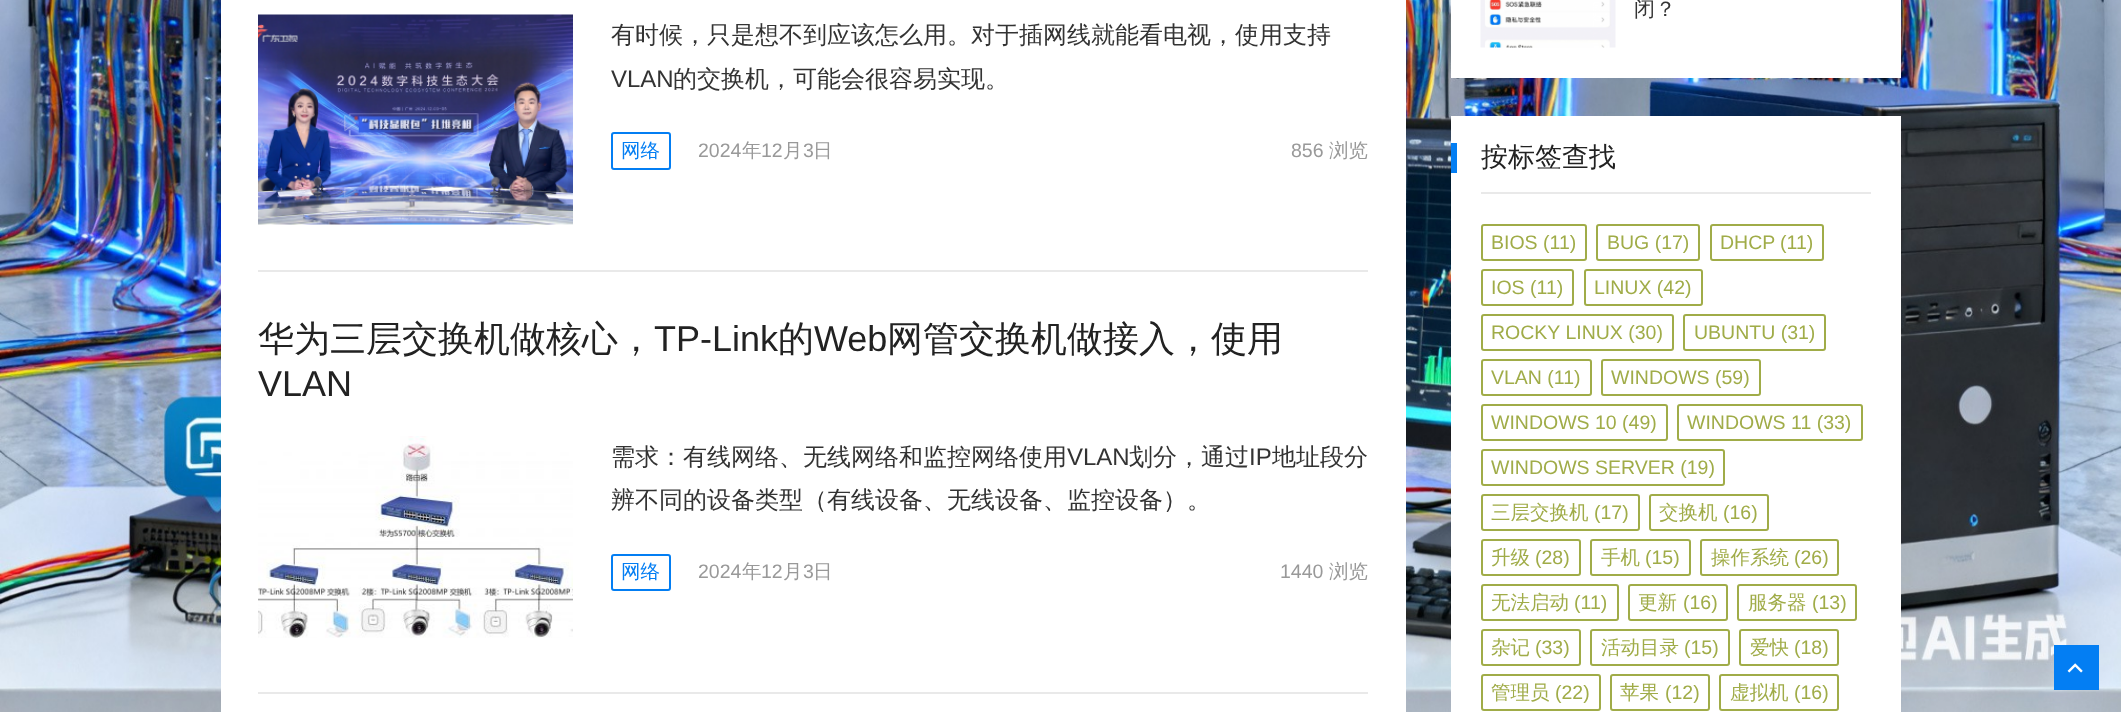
<?xml version="1.0" encoding="UTF-8"?>
<svg xmlns="http://www.w3.org/2000/svg" xmlns:xlink="http://www.w3.org/1999/xlink" width="2121" height="712">
  <rect width="100%" height="100%" fill="#ffffff" />
  <image x="0" y="0" width="2121" height="712" xlink:href="image1.png" />
  <rect x="221" width="1185" height="712" fill="#ffffff" />
  <rect x="258" y="270" width="1110" height="2" fill="#e9e9e9" />
  <image x="258" y="14" width="315" height="211" xlink:href="image2.png" />
  <rect x="612" y="133" width="58" height="36" rx="2" fill="none" stroke="#037ef3" stroke-width="2" />
  <rect x="258" y="692" width="1110" height="2" fill="#e9e9e9" />
  <image x="258" y="436" width="315" height="202" xlink:href="image3.png" />
  <rect x="612" y="555" width="58" height="35" rx="2" fill="none" stroke="#037ef3" stroke-width="2" />
  <rect x="1451" width="450" height="78" fill="#ffffff" />
  <image x="1480" y="0" width="136" height="48" xlink:href="image4.png" />
  <rect x="1451" y="116" width="450" height="596" fill="#ffffff" />
  <rect x="1481" y="192" width="390" height="2" fill="#e9e9e9" />
  <rect x="1451" y="143" width="6" height="30" fill="#037ef3" />
  <rect x="1482" y="225" width="104" height="35" rx="2" fill="none" stroke="#a0ac48" stroke-width="2" />
  <rect x="1597" y="225" width="102" height="35" rx="2" fill="none" stroke="#a0ac48" stroke-width="2" />
  <rect x="1711" y="225" width="112" height="35" rx="2" fill="none" stroke="#a0ac48" stroke-width="2" />
  <rect x="1482" y="270" width="91" height="35" rx="2" fill="none" stroke="#a0ac48" stroke-width="2" />
  <rect x="1585" y="270" width="117" height="35" rx="2" fill="none" stroke="#a0ac48" stroke-width="2" />
  <rect x="1482" y="315" width="191" height="35" rx="2" fill="none" stroke="#a0ac48" stroke-width="2" />
  <rect x="1684" y="315" width="141" height="35" rx="2" fill="none" stroke="#a0ac48" stroke-width="2" />
  <rect x="1482" y="360" width="109" height="35" rx="2" fill="none" stroke="#a0ac48" stroke-width="2" />
  <rect x="1602" y="360" width="158" height="35" rx="2" fill="none" stroke="#a0ac48" stroke-width="2" />
  <rect x="1482" y="405" width="185" height="35" rx="2" fill="none" stroke="#a0ac48" stroke-width="2" />
  <rect x="1678" y="405" width="184" height="35" rx="2" fill="none" stroke="#a0ac48" stroke-width="2" />
  <rect x="1482" y="450" width="242" height="35" rx="2" fill="none" stroke="#a0ac48" stroke-width="2" />
  <rect x="1482" y="495" width="157" height="35" rx="2" fill="none" stroke="#a0ac48" stroke-width="2" />
  <rect x="1650" y="495" width="118" height="35" rx="2" fill="none" stroke="#a0ac48" stroke-width="2" />
  <rect x="1482" y="540" width="98" height="35" rx="2" fill="none" stroke="#a0ac48" stroke-width="2" />
  <rect x="1591" y="540" width="99" height="35" rx="2" fill="none" stroke="#a0ac48" stroke-width="2" />
  <rect x="1701" y="540" width="137" height="35" rx="2" fill="none" stroke="#a0ac48" stroke-width="2" />
  <rect x="1482" y="585" width="136" height="35" rx="2" fill="none" stroke="#a0ac48" stroke-width="2" />
  <rect x="1629" y="585" width="98" height="35" rx="2" fill="none" stroke="#a0ac48" stroke-width="2" />
  <rect x="1738" y="585" width="118" height="35" rx="2" fill="none" stroke="#a0ac48" stroke-width="2" />
  <rect x="1482" y="630" width="98" height="35" rx="2" fill="none" stroke="#a0ac48" stroke-width="2" />
  <rect x="1591" y="630" width="138" height="35" rx="2" fill="none" stroke="#a0ac48" stroke-width="2" />
  <rect x="1740" y="630" width="98" height="35" rx="2" fill="none" stroke="#a0ac48" stroke-width="2" />
  <rect x="1482" y="675" width="118" height="35" rx="2" fill="none" stroke="#a0ac48" stroke-width="2" />
  <rect x="1611" y="675" width="98" height="35" rx="2" fill="none" stroke="#a0ac48" stroke-width="2" />
  <rect x="1720" y="675" width="118" height="35" rx="2" fill="none" stroke="#a0ac48" stroke-width="2" />
  <rect x="2054" y="645" width="45" height="45" fill="#037ef3" />
  <image x="2067" y="663" width="16" height="10" xlink:href="image5.png" />
  <text x="611" y="43" style="font-family: WenQuanYi Zen Hei; font-size: 24px; font-weight: 500; fill: #333333">有时候，只是想不到应该怎么用。对于插网线就能看电视，使用支持</text>
  <text x="611" y="87" style="font-family: Liberation Sans; font-size: 24px; fill: #333333">VLAN</text>
  <text x="673" y="87" style="font-family: WenQuanYi Zen Hei; font-size: 24px; font-weight: 500; fill: #333333">的交换机，可能会很容易实现。</text>
  <text x="621" y="157" style="font-family: WenQuanYi Zen Hei; font-size: 19.5px; font-weight: 500; fill: #037ef3">网络</text>
  <text x="698" y="157" style="font-family: Liberation Sans; font-size: 19.5px; fill: #999999">2024</text>
  <text x="742" y="157" style="font-family: WenQuanYi Zen Hei; font-size: 19.5px; font-weight: 500; fill: #999999">年</text>
  <text x="761" y="157" style="font-family: Liberation Sans; font-size: 19.5px; fill: #999999">12</text>
  <text x="783" y="157" style="font-family: WenQuanYi Zen Hei; font-size: 19.5px; font-weight: 500; fill: #999999">月</text>
  <text x="803" y="157" style="font-family: Liberation Sans; font-size: 19.5px; fill: #999999">3</text>
  <text x="813" y="157" style="font-family: WenQuanYi Zen Hei; font-size: 19.5px; font-weight: 500; fill: #999999">日</text>
  <text x="1291" y="157" style="font-family: Liberation Sans; font-size: 19.5px; fill: #999999">856</text>
  <text x="1329" y="157" style="font-family: WenQuanYi Zen Hei; font-size: 19.5px; font-weight: 500; fill: #999999">浏览</text>
  <text x="258" y="351" style="font-family: WenQuanYi Zen Hei; font-size: 36px; font-weight: 500; fill: #222222">华为三层交换机做核心，</text>
  <text x="654" y="351" style="font-family: Liberation Sans; font-size: 36px; fill: #222222">TP-Link</text>
  <text x="778" y="351" style="font-family: WenQuanYi Zen Hei; font-size: 36px; font-weight: 500; fill: #222222">的</text>
  <text x="814" y="351" style="font-family: Liberation Sans; font-size: 36px; fill: #222222">Web</text>
  <text x="887" y="351" style="font-family: WenQuanYi Zen Hei; font-size: 36px; font-weight: 500; fill: #222222">网管交换机做接入，使用</text>
  <text x="258" y="396" style="font-family: Liberation Sans; font-size: 36px; fill: #222222">VLAN</text>
  <text x="611" y="465" style="font-family: WenQuanYi Zen Hei; font-size: 24px; font-weight: 500; fill: #333333">需求：有线网络、无线网络和监控网络使用</text>
  <text x="1067" y="465" style="font-family: Liberation Sans; font-size: 24px; fill: #333333">VLAN</text>
  <text x="1129" y="465" style="font-family: WenQuanYi Zen Hei; font-size: 24px; font-weight: 500; fill: #333333">划分，通过</text>
  <text x="1249" y="465" style="font-family: Liberation Sans; font-size: 24px; fill: #333333">IP</text>
  <text x="1272" y="465" style="font-family: WenQuanYi Zen Hei; font-size: 24px; font-weight: 500; fill: #333333">地址段分</text>
  <text x="611" y="508" style="font-family: WenQuanYi Zen Hei; font-size: 24px; font-weight: 500; fill: #333333">辨不同的设备类型（有线设备、无线设备、监控设备）。</text>
  <text x="621" y="578" style="font-family: WenQuanYi Zen Hei; font-size: 19.5px; font-weight: 500; fill: #037ef3">网络</text>
  <text x="698" y="578" style="font-family: Liberation Sans; font-size: 19.5px; fill: #999999">2024</text>
  <text x="742" y="578" style="font-family: WenQuanYi Zen Hei; font-size: 19.5px; font-weight: 500; fill: #999999">年</text>
  <text x="761" y="578" style="font-family: Liberation Sans; font-size: 19.5px; fill: #999999">12</text>
  <text x="783" y="578" style="font-family: WenQuanYi Zen Hei; font-size: 19.5px; font-weight: 500; fill: #999999">月</text>
  <text x="803" y="578" style="font-family: Liberation Sans; font-size: 19.5px; fill: #999999">3</text>
  <text x="813" y="578" style="font-family: WenQuanYi Zen Hei; font-size: 19.5px; font-weight: 500; fill: #999999">日</text>
  <text x="1280" y="578" style="font-family: Liberation Sans; font-size: 19.5px; fill: #999999">1440</text>
  <text x="1329" y="578" style="font-family: WenQuanYi Zen Hei; font-size: 19.5px; font-weight: 500; fill: #999999">浏览</text>
  <text x="1634" y="16" style="font-family: WenQuanYi Zen Hei; font-size: 21px; font-weight: 500; fill: #333333">闭？</text>
  <text x="1481" y="166" style="font-family: WenQuanYi Zen Hei; font-size: 27px; font-weight: 500; fill: #222222">按标签查找</text>
  <text x="1491" y="249" style="font-family: Liberation Sans; font-size: 19.5px; fill: #a0ac48">BIOS (11)</text>
  <text x="1607" y="249" style="font-family: Liberation Sans; font-size: 19.5px; fill: #a0ac48">BUG (17)</text>
  <text x="1720" y="249" style="font-family: Liberation Sans; font-size: 19.5px; fill: #a0ac48">DHCP</text>
  <text x="1780" y="249" style="font-family: Liberation Sans; font-size: 19.5px; fill: #a0ac48">(11)</text>
  <text x="1491" y="294" style="font-family: Liberation Sans; font-size: 19.5px; fill: #a0ac48">IOS (11)</text>
  <text x="1594" y="294" style="font-family: Liberation Sans; font-size: 19.5px; fill: #a0ac48">LINUX (42)</text>
  <text x="1491" y="339" style="font-family: Liberation Sans; font-size: 19.5px; fill: #a0ac48">ROCKY LINUX (30)</text>
  <text x="1694" y="339" style="font-family: Liberation Sans; font-size: 19.5px; fill: #a0ac48">UBUNTU (31)</text>
  <text x="1491" y="384" style="font-family: Liberation Sans; font-size: 19.5px; fill: #a0ac48">VLAN (11)</text>
  <text x="1611" y="384" style="font-family: Liberation Sans; font-size: 19.5px; fill: #a0ac48">WINDOWS (59)</text>
  <text x="1491" y="429" style="font-family: Liberation Sans; font-size: 19.5px; fill: #a0ac48">WINDOWS 10 (49)</text>
  <text x="1687" y="429" style="font-family: Liberation Sans; font-size: 19.5px; fill: #a0ac48">WINDOWS 11 (33)</text>
  <text x="1491" y="474" style="font-family: Liberation Sans; font-size: 19.5px; fill: #a0ac48">WINDOWS SERVER (19)</text>
  <text x="1491" y="519" style="font-family: WenQuanYi Zen Hei; font-size: 19.5px; font-weight: 500; fill: #a0ac48">三层交换机</text>
  <text x="1594" y="519" style="font-family: Liberation Sans; font-size: 19.5px; fill: #a0ac48">(17)</text>
  <text x="1659" y="519" style="font-family: WenQuanYi Zen Hei; font-size: 19.5px; font-weight: 500; fill: #a0ac48">交换机</text>
  <text x="1723" y="519" style="font-family: Liberation Sans; font-size: 19.5px; fill: #a0ac48">(16)</text>
  <text x="1491" y="564" style="font-family: WenQuanYi Zen Hei; font-size: 19.5px; font-weight: 500; fill: #a0ac48">升级</text>
  <text x="1535" y="564" style="font-family: Liberation Sans; font-size: 19.5px; fill: #a0ac48">(28)</text>
  <text x="1601" y="564" style="font-family: WenQuanYi Zen Hei; font-size: 19.5px; font-weight: 500; fill: #a0ac48">手机</text>
  <text x="1645" y="564" style="font-family: Liberation Sans; font-size: 19.5px; fill: #a0ac48">(15)</text>
  <text x="1711" y="564" style="font-family: WenQuanYi Zen Hei; font-size: 19.5px; font-weight: 500; fill: #a0ac48">操作系统</text>
  <text x="1794" y="564" style="font-family: Liberation Sans; font-size: 19.5px; fill: #a0ac48">(26)</text>
  <text x="1491" y="609" style="font-family: WenQuanYi Zen Hei; font-size: 19.5px; font-weight: 500; fill: #a0ac48">无法启动</text>
  <text x="1574" y="609" style="font-family: Liberation Sans; font-size: 19.5px; fill: #a0ac48">(11)</text>
  <text x="1638" y="609" style="font-family: WenQuanYi Zen Hei; font-size: 19.5px; font-weight: 500; fill: #a0ac48">更新</text>
  <text x="1683" y="609" style="font-family: Liberation Sans; font-size: 19.5px; fill: #a0ac48">(16)</text>
  <text x="1748" y="609" style="font-family: WenQuanYi Zen Hei; font-size: 19.5px; font-weight: 500; fill: #a0ac48">服务器</text>
  <text x="1812" y="609" style="font-family: Liberation Sans; font-size: 19.5px; fill: #a0ac48">(13)</text>
  <text x="1491" y="654" style="font-family: WenQuanYi Zen Hei; font-size: 19.5px; font-weight: 500; fill: #a0ac48">杂记</text>
  <text x="1535" y="654" style="font-family: Liberation Sans; font-size: 19.5px; fill: #a0ac48">(33)</text>
  <text x="1601" y="654" style="font-family: WenQuanYi Zen Hei; font-size: 19.5px; font-weight: 500; fill: #a0ac48">活动目录</text>
  <text x="1684" y="654" style="font-family: Liberation Sans; font-size: 19.5px; fill: #a0ac48">(15)</text>
  <text x="1750" y="654" style="font-family: WenQuanYi Zen Hei; font-size: 19.5px; font-weight: 500; fill: #a0ac48">爱快</text>
  <text x="1794" y="654" style="font-family: Liberation Sans; font-size: 19.5px; fill: #a0ac48">(18)</text>
  <text x="1491" y="699" style="font-family: WenQuanYi Zen Hei; font-size: 19.5px; font-weight: 500; fill: #a0ac48">管理员</text>
  <text x="1555" y="699" style="font-family: Liberation Sans; font-size: 19.5px; fill: #a0ac48">(22)</text>
  <text x="1620" y="699" style="font-family: WenQuanYi Zen Hei; font-size: 19.5px; font-weight: 500; fill: #a0ac48">苹果</text>
  <text x="1665" y="699" style="font-family: Liberation Sans; font-size: 19.5px; fill: #a0ac48">(12)</text>
  <text x="1730" y="699" style="font-family: WenQuanYi Zen Hei; font-size: 19.5px; font-weight: 500; fill: #a0ac48">虚拟机</text>
  <text x="1794" y="699" style="font-family: Liberation Sans; font-size: 19.5px; fill: #a0ac48">(16)</text>
</svg>
